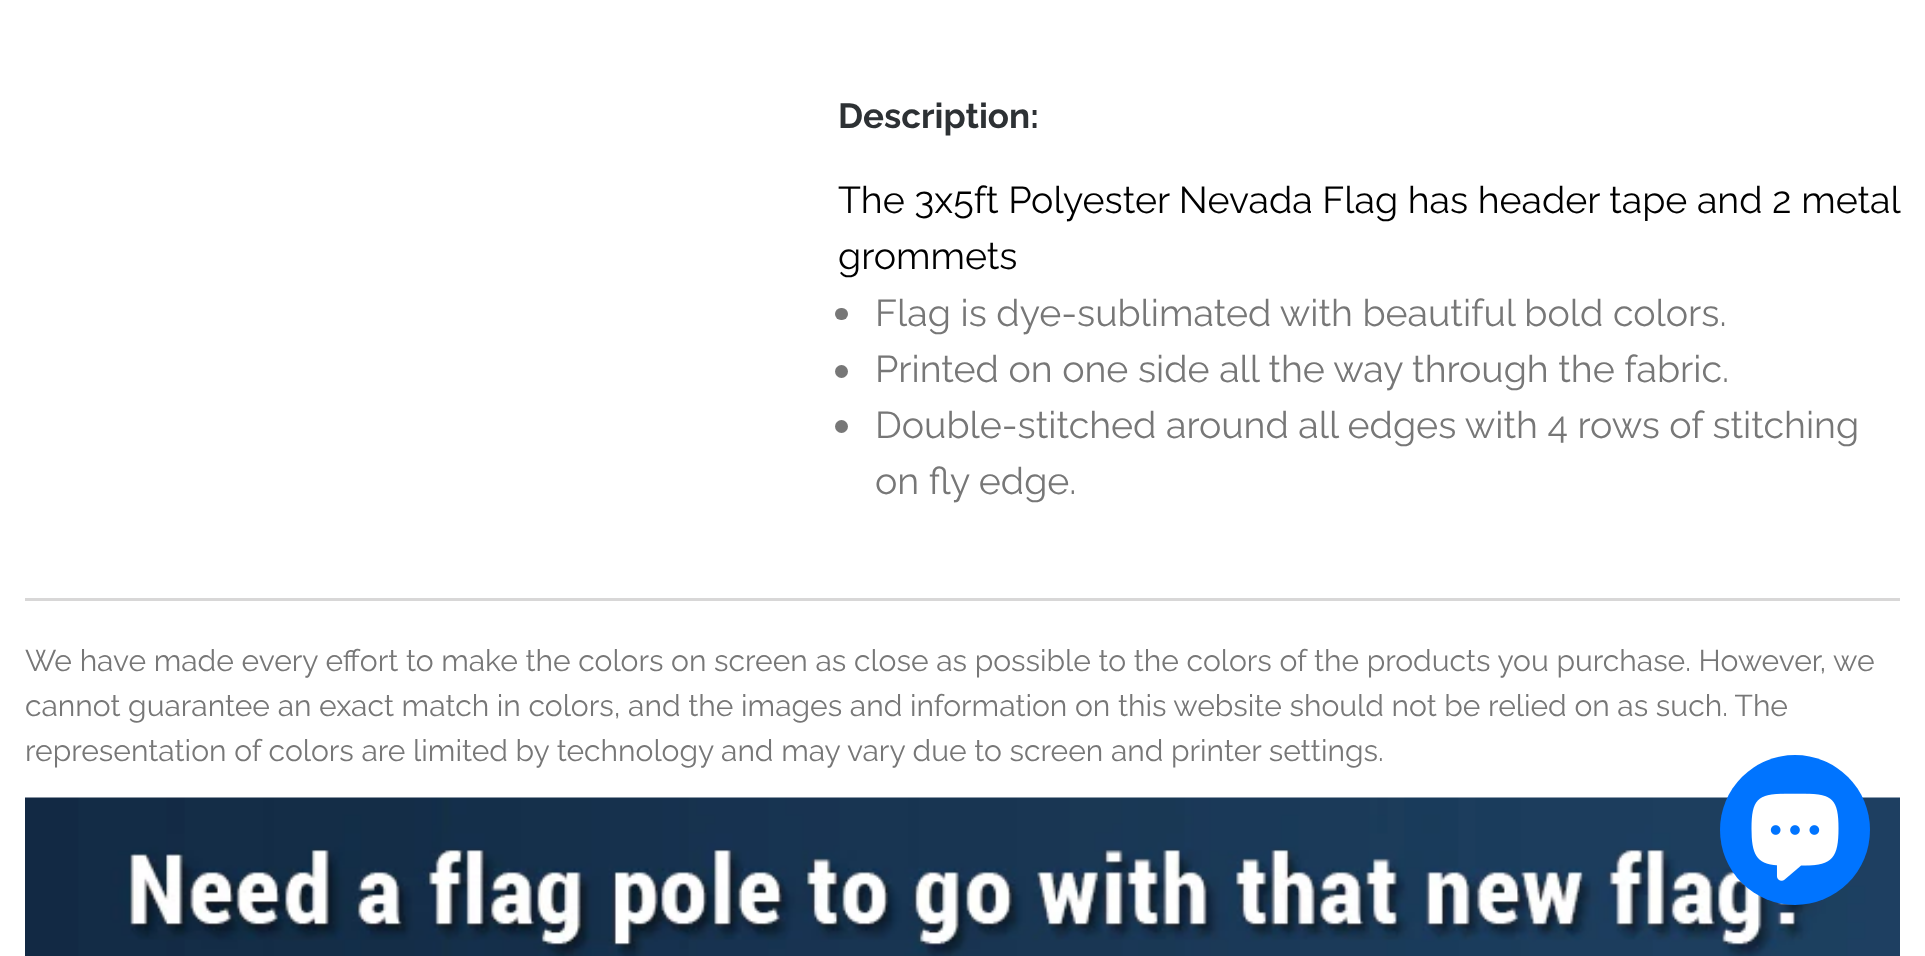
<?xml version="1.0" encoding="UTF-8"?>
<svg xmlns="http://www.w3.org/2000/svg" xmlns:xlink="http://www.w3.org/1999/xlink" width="1925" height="956">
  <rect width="100%" height="100%" fill="#ffffff" />
  <rect x="835" y="308" width="13" height="12" rx="6" fill="#777777" />
  <circle cx="841.5" cy="371.5" r="6.5" fill="#777777" />
  <circle cx="841.5" cy="426.5" r="6.5" fill="#777777" />
  <rect x="25" y="598" width="1875" height="3" fill="#d8d7d7" />
  <image x="25" y="797" width="1875" height="159" xlink:href="image1.png" />
  <circle cx="1795" cy="830" r="75" fill="#0074ff" />
  <image x="1751" y="793" width="88" height="88" xlink:href="image2.png" />
  <text x="838" y="128" style="font-family: Raleway; font-size: 35px; font-weight: bold; fill: #2d3134">Description:</text>
  <text x="838" y="213" style="font-family: Raleway; font-size: 37.5px; fill: #000000">The 3x5ft Polyester Nevada Flag has header tape and 2 metal</text>
  <text x="838" y="269" style="font-family: Raleway; font-size: 37.5px; fill: #000000">grommets</text>
  <text x="875" y="326" style="font-family: Raleway; font-size: 37.5px; fill: #777777">Flag is dye-sublimated with beautiful bold colors.</text>
  <text x="875" y="382" style="font-family: Raleway; font-size: 37.5px; fill: #777777">Printed on one side all the way through the fabric.</text>
  <text x="875" y="438" style="font-family: Raleway; font-size: 37.5px; fill: #777777">Double-stitched around all edges with 4 rows of stitching</text>
  <text x="875" y="494" style="font-family: Raleway; font-size: 37.5px; fill: #777777">on fly edge.</text>
  <text x="25" y="671" style="font-family: Raleway; font-size: 30px; fill: #777777">We have made every effort to make the colors on screen as close as possible to the colors of the products you purchase. However, we</text>
  <text x="25" y="716" style="font-family: Raleway; font-size: 30px; fill: #777777">cannot guarantee an exact match in colors, and the images and information on this website should not be relied on as such. The</text>
  <text x="25" y="761" style="font-family: Raleway; font-size: 30px; fill: #777777">representation of colors are limited by technology and may vary due to screen and printer settings.</text>
</svg>
